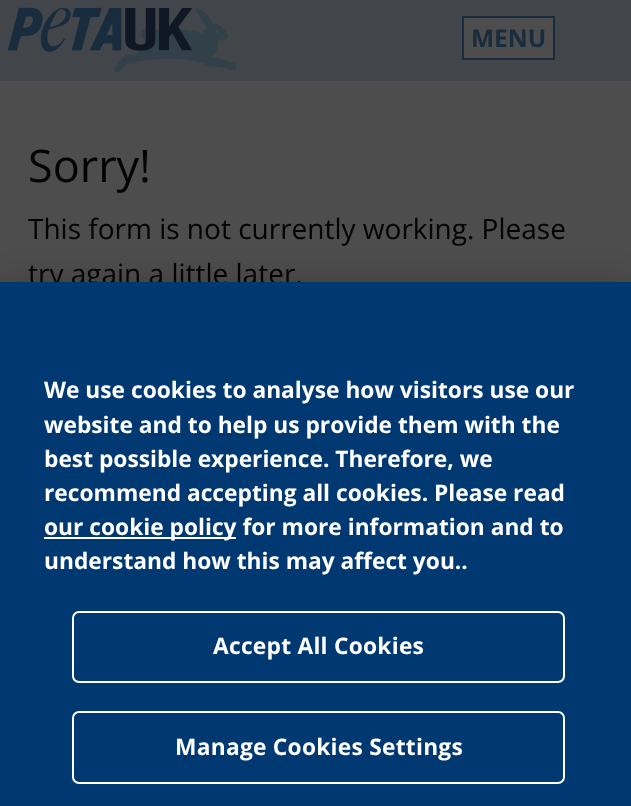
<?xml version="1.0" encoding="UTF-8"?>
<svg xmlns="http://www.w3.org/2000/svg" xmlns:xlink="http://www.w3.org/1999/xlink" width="631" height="806">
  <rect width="100%" height="100%" fill="#4d4d4d" />
  <rect width="631" height="81" fill="#42464a" />
  <image x="7" y="7" width="230" height="66" xlink:href="image1.png" />
  <rect x="463" y="17" width="91" height="42" fill="#4d4d4d" stroke="#192c3d" stroke-width="2" />
  <rect y="282" width="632" height="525" fill="#000000" fill-opacity="0.2" filter="blur(16px)" />
  <text x="471" y="47" style="font-family: Open Sans; font-size: 24.5px; font-weight: bold; fill: #192c3d">MENU</text>
  <text x="28" y="182" style="font-family: Open Sans; font-size: 45px; fill: #030303">Sorry!</text>
  <text x="28" y="239" style="font-family: Open Sans; font-size: 28px; fill: #030303">This form is not currently working. Please</text>
  <text x="28" y="284" style="font-family: Open Sans; font-size: 28px; fill: #030303">try again a little later.</text>
  <rect y="282" width="631" height="524" fill="#003872" />
  <text x="44" y="398" style="font-family: Open Sans; font-size: 22.75px; font-weight: bold; fill: #ffffff">We use cookies to analyse how visitors use our</text>
  <text x="44" y="433" style="font-family: Open Sans; font-size: 22.75px; font-weight: bold; fill: #ffffff">website and to help us provide them with the</text>
  <text x="44" y="467" style="font-family: Open Sans; font-size: 22.75px; font-weight: bold; fill: #ffffff">best possible experience. Therefore, we</text>
  <text x="44" y="501" style="font-family: Open Sans; font-size: 22.75px; font-weight: bold; fill: #ffffff">recommend accepting all cookies. Please read</text>
  <rect x="44" y="537" width="192" height="2" fill="#ffffff" />
  <text x="44" y="535" style="font-family: Open Sans; font-size: 22.75px; font-weight: bold; fill: #ffffff">our cookie policy for more information and to</text>
  <text x="44" y="569" style="font-family: Open Sans; font-size: 22.75px; font-weight: bold; fill: #ffffff">understand how this may affect you..</text>
  <rect x="73" y="612" width="491" height="70" rx="6" fill="none" stroke="#ffffff" stroke-width="2" />
  <text x="213" y="654" style="font-family: Open Sans; font-size: 22.75px; font-weight: bold; letter-spacing: 0.25px; fill: #ffffff">Accept All Cookies</text>
  <rect x="73" y="712" width="491" height="71" rx="6" fill="none" stroke="#ffffff" stroke-width="2" />
  <text x="175" y="755" style="font-family: Open Sans; font-size: 22.75px; font-weight: bold; letter-spacing: 0.25px; fill: #ffffff">Manage Cookies Settings</text>
</svg>
